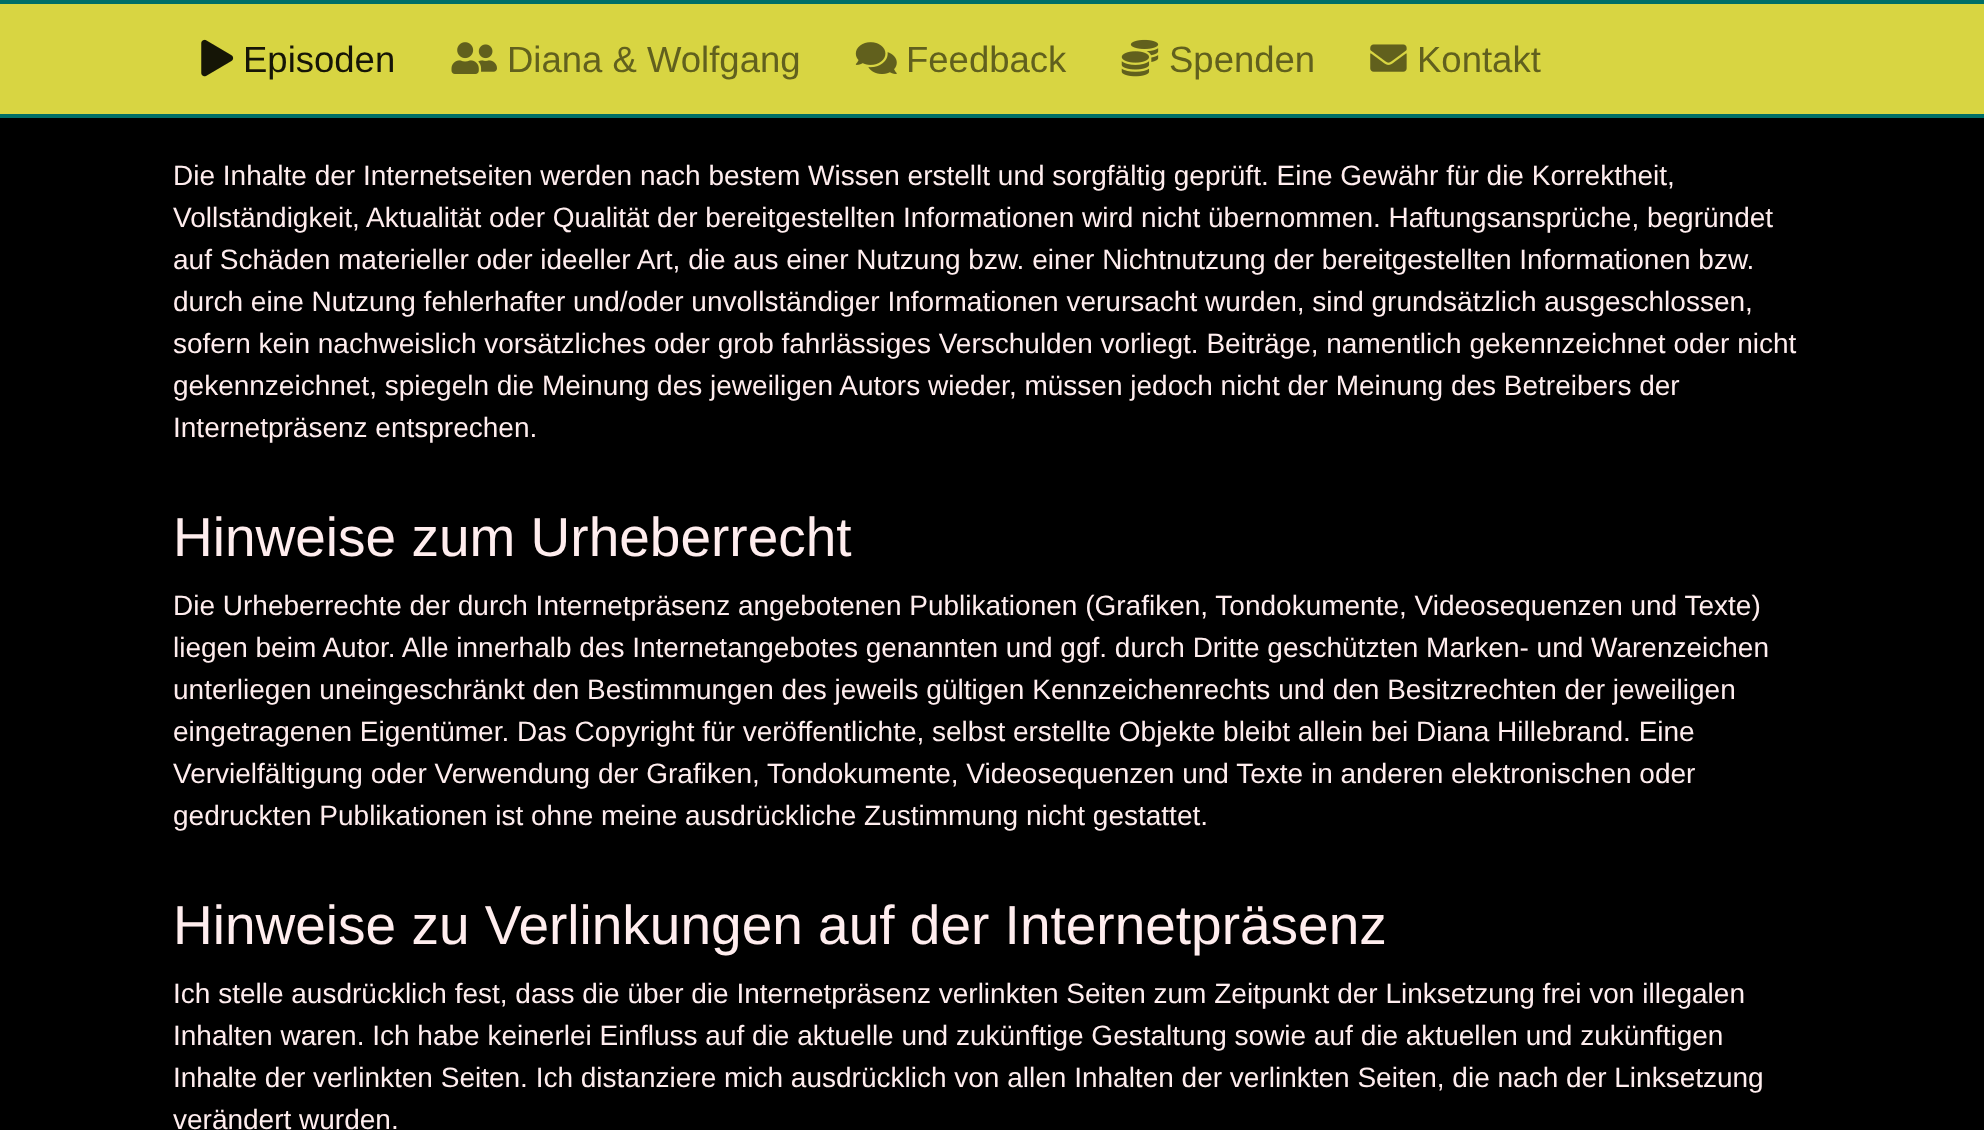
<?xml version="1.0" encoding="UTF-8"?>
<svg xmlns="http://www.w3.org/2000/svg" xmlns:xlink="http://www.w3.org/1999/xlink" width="1984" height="1130">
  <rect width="100%" height="100%" fill="#000000" />
  <rect y="4" width="1984" height="110" fill="#d8d542" />
  <rect width="1984" height="4" fill="#006f67" />
  <rect y="114" width="1984" height="4" fill="#006f67" />
  <image x="201" y="39" width="33" height="38" xlink:href="image1.png" />
  <image x="451" y="42" width="46" height="32" xlink:href="image2.png" />
  <image x="855" y="42" width="42" height="32" xlink:href="image3.png" />
  <image x="1121" y="39" width="38" height="38" xlink:href="image4.png" />
  <image x="1370" y="44" width="37" height="28" xlink:href="image5.png" />
  <text x="243" y="72" style="font-family: Liberation Sans; font-size: 36.5px; fill: #161507">Episoden</text>
  <text x="507" y="72" style="font-family: Liberation Sans; font-size: 36.5px; fill: #61601e">Diana &amp; Wolfgang</text>
  <text x="906" y="72" style="font-family: Liberation Sans; font-size: 36.5px; fill: #61601e">Feedback</text>
  <text x="1169" y="72" style="font-family: Liberation Sans; font-size: 36.5px; fill: #61601e">Spenden</text>
  <text x="1417" y="72" style="font-family: Liberation Sans; font-size: 36.5px; fill: #61601e">Kontakt</text>
  <text x="173" y="185" style="font-family: Liberation Sans; font-size: 28px; fill: #ffedee">Die Inhalte der Internetseiten werden nach bestem Wissen erstellt und sorgfältig geprüft. Eine Gewähr für die Korrektheit,</text>
  <text x="173" y="227" style="font-family: Liberation Sans; font-size: 28px; fill: #ffedee">Vollständigkeit, Aktualität oder Qualität der bereitgestellten Informationen wird nicht übernommen. Haftungsansprüche, begründet</text>
  <text x="173" y="269" style="font-family: Liberation Sans; font-size: 28px; fill: #ffedee">auf Schäden materieller oder ideeller Art, die aus einer Nutzung bzw. einer Nichtnutzung der bereitgestellten Informationen bzw.</text>
  <text x="173" y="311" style="font-family: Liberation Sans; font-size: 28px; fill: #ffedee">durch eine Nutzung fehlerhafter und/oder unvollständiger Informationen verursacht wurden, sind grundsätzlich ausgeschlossen,</text>
  <text x="173" y="353" style="font-family: Liberation Sans; font-size: 28px; fill: #ffedee">sofern kein nachweislich vorsätzliches oder grob fahrlässiges Verschulden vorliegt. Beiträge, namentlich gekennzeichnet oder nicht</text>
  <text x="173" y="395" style="font-family: Liberation Sans; font-size: 28px; fill: #ffedee">gekennzeichnet, spiegeln die Meinung des jeweiligen Autors wieder, müssen jedoch nicht der Meinung des Betreibers der</text>
  <text x="173" y="437" style="font-family: Liberation Sans; font-size: 28px; fill: #ffedee">Internetpräsenz entsprechen.</text>
  <text x="173" y="556" style="font-family: Liberation Sans; font-size: 55px; fill: #ffedee">Hinweise zum Urheberrecht</text>
  <text x="173" y="615" style="font-family: Liberation Sans; font-size: 28px; fill: #ffedee">Die Urheberrechte der durch Internetpräsenz angebotenen Publikationen (Grafiken, Tondokumente, Videosequenzen und Texte)</text>
  <text x="173" y="657" style="font-family: Liberation Sans; font-size: 28px; fill: #ffedee">liegen beim Autor. Alle innerhalb des Internetangebotes genannten und ggf. durch Dritte geschützten Marken- und Warenzeichen</text>
  <text x="173" y="699" style="font-family: Liberation Sans; font-size: 28px; fill: #ffedee">unterliegen uneingeschränkt den Bestimmungen des jeweils gültigen Kennzeichenrechts und den Besitzrechten der jeweiligen</text>
  <text x="173" y="741" style="font-family: Liberation Sans; font-size: 28px; fill: #ffedee">eingetragenen Eigentümer. Das Copyright für veröffentlichte, selbst erstellte Objekte bleibt allein bei Diana Hillebrand. Eine</text>
  <text x="173" y="783" style="font-family: Liberation Sans; font-size: 28px; fill: #ffedee">Vervielfältigung oder Verwendung der Grafiken, Tondokumente, Videosequenzen und Texte in anderen elektronischen oder</text>
  <text x="173" y="825" style="font-family: Liberation Sans; font-size: 28px; fill: #ffedee">gedruckten Publikationen ist ohne meine ausdrückliche Zustimmung nicht gestattet.</text>
  <text x="173" y="944" style="font-family: Liberation Sans; font-size: 55px; fill: #ffedee">Hinweise zu Verlinkungen auf der Internetpräsenz</text>
  <text x="173" y="1003" style="font-family: Liberation Sans; font-size: 28px; fill: #ffedee">Ich stelle ausdrücklich fest, dass die über die Internetpräsenz verlinkten Seiten zum Zeitpunkt der Linksetzung frei von illegalen</text>
  <text x="173" y="1045" style="font-family: Liberation Sans; font-size: 28px; fill: #ffedee">Inhalten waren. Ich habe keinerlei Einfluss auf die aktuelle und zukünftige Gestaltung sowie auf die aktuellen und zukünftigen</text>
  <text x="173" y="1087" style="font-family: Liberation Sans; font-size: 28px; fill: #ffedee">Inhalte der verlinkten Seiten. Ich distanziere mich ausdrücklich von allen Inhalten der verlinkten Seiten, die nach der Linksetzung</text>
  <text x="173" y="1129" style="font-family: Liberation Sans; font-size: 28px; fill: #ffedee">verändert wurden.</text>
</svg>
